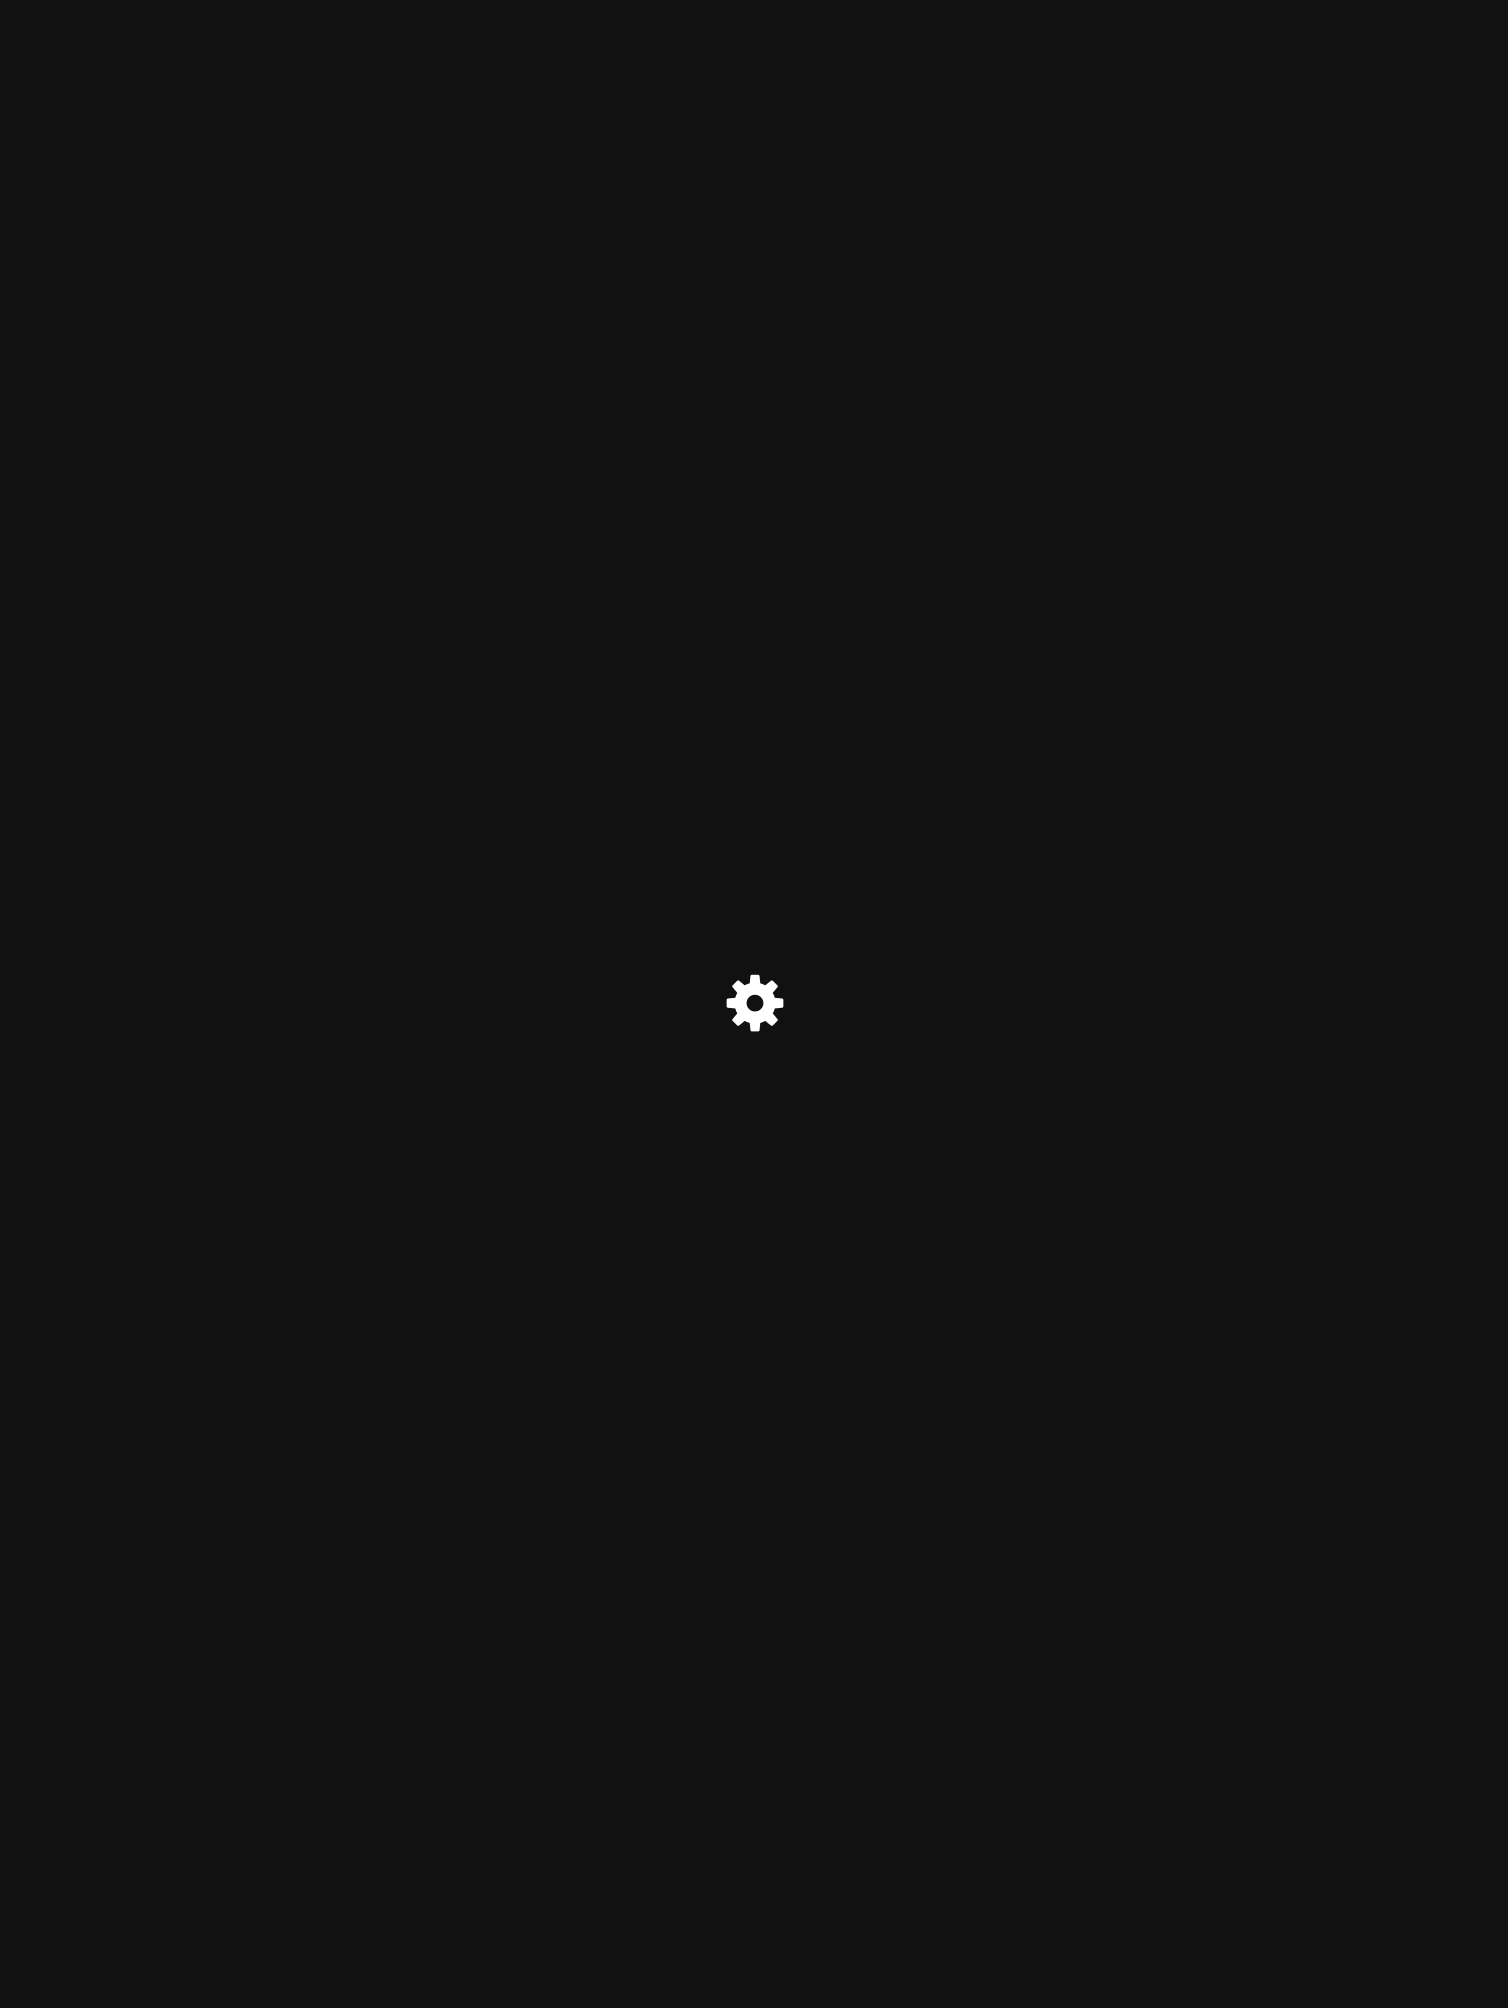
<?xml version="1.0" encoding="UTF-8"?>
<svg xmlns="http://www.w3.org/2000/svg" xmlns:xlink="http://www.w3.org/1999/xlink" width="1508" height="2008">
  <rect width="100%" height="100%" fill="#111111" />
  <image x="726" y="974" width="58" height="58" xlink:href="image1.png" />
</svg>
